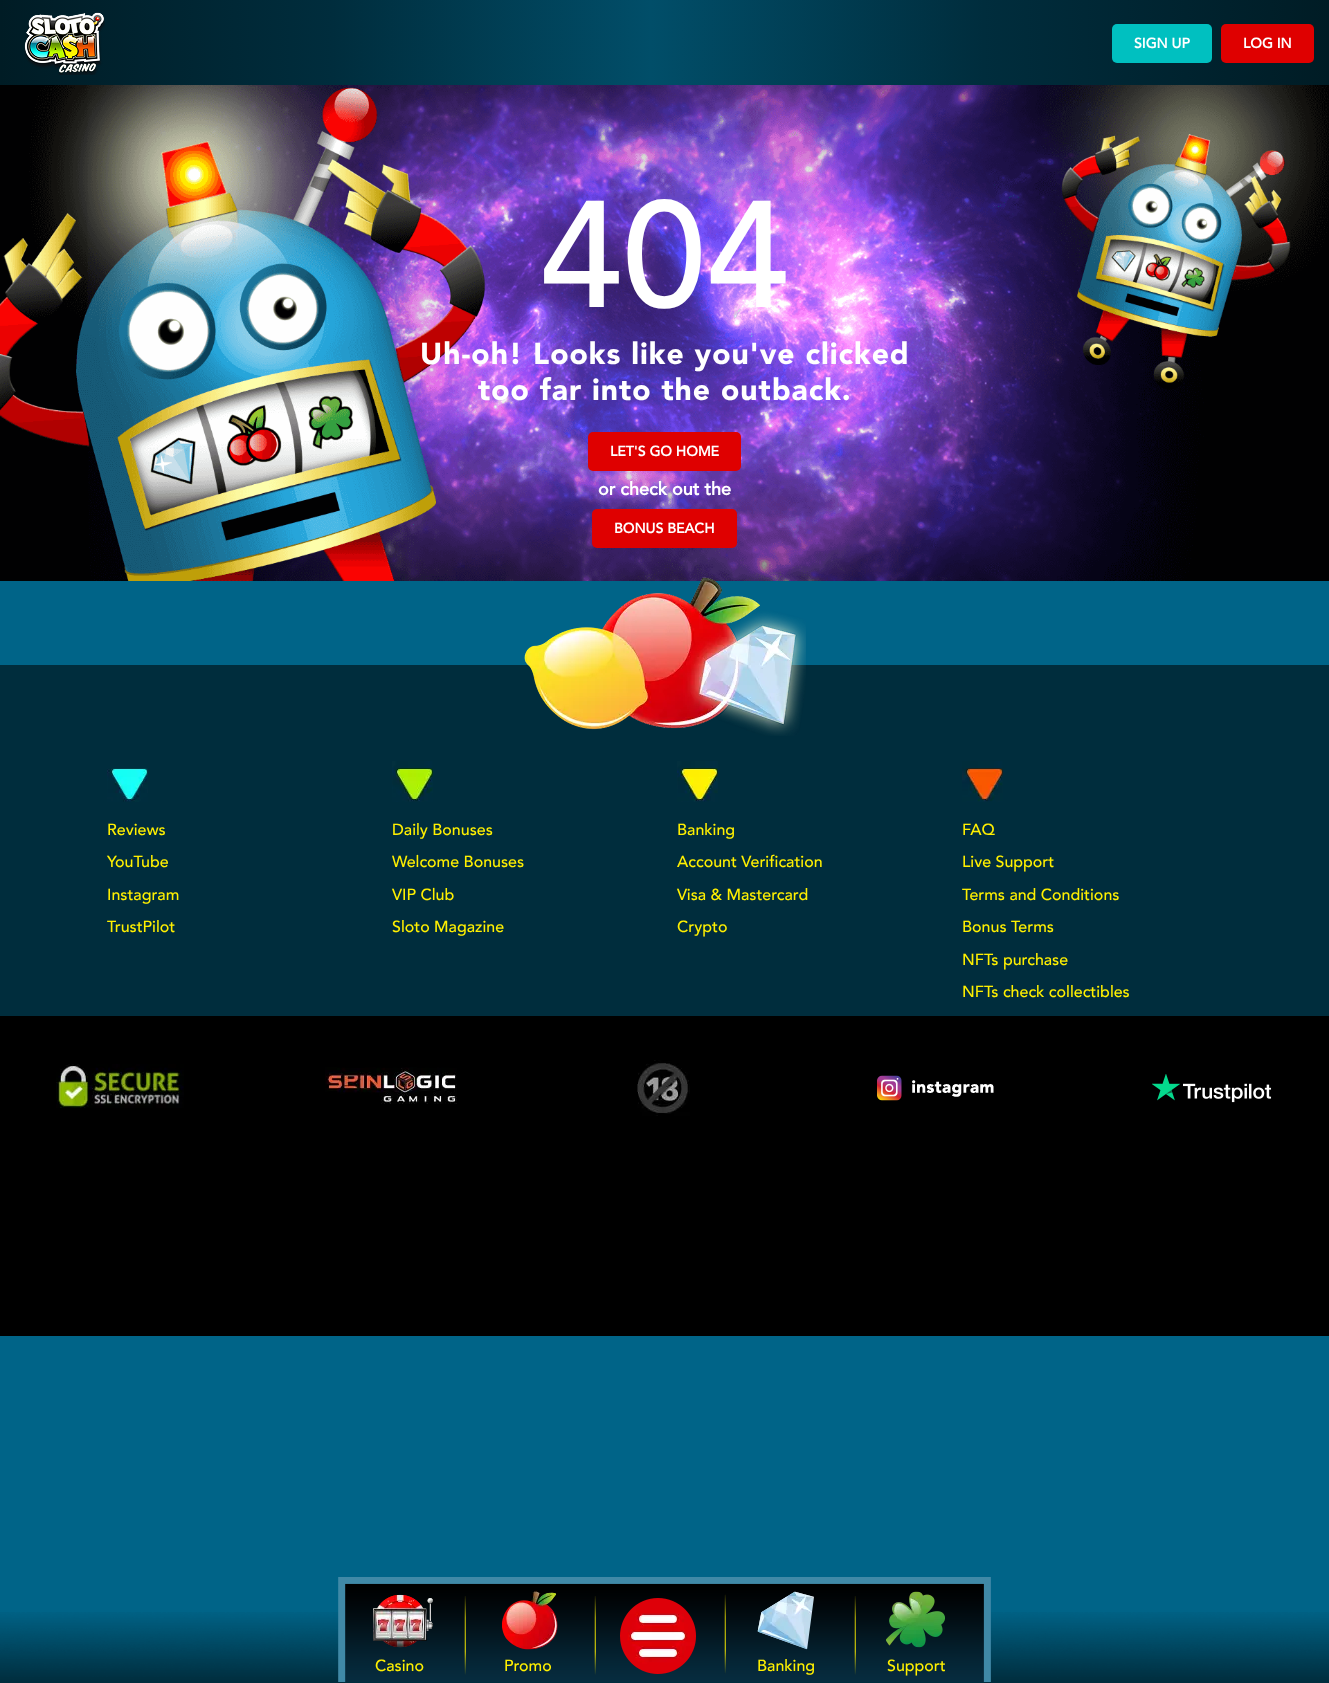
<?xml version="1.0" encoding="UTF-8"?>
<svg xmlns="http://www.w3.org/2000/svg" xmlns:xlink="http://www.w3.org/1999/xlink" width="1329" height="1683">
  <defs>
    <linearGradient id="g1" gradientUnits="userSpaceOnUse" x1="0" y1="43" x2="1329" y2="42"><stop offset="0" stop-color="#001c25" /><stop offset="0.25" stop-color="#002d3d" /><stop offset="0.49" stop-color="#014e69" /><stop offset="0.74" stop-color="#002d3d" /><stop offset="1" stop-color="#001c25" /></linearGradient>
  </defs>
  <rect width="100%" height="100%" fill="#006488" />
  <rect width="1329" height="85" fill="url(#g1)" />
  <image x="24" y="12" width="81" height="63" xlink:href="image1.png" />
  <rect x="1112" y="24" width="100" height="39" rx="5" fill="#00c0c0" />
  <rect x="1221" y="24" width="93" height="39" rx="5" fill="#df0000" />
  <image x="0" y="85" width="1329" height="496" xlink:href="image2.png" />
  <rect x="588" y="432" width="153" height="39" rx="5" fill="#df0000" />
  <rect x="592" y="509" width="145" height="39" rx="5" fill="#df0000" />
  <rect y="665" width="1329" height="351" fill="#002d3d" />
  <image x="524" y="577" width="282" height="159" xlink:href="image3.png" />
  <image x="107" y="768" width="41" height="34" xlink:href="image4.png" />
  <image x="392" y="761" width="41" height="41" xlink:href="image5.png" />
  <image x="677" y="761" width="41" height="41" xlink:href="image6.png" />
  <image x="962" y="761" width="41" height="41" xlink:href="image7.png" />
  <rect y="1016" width="1329" height="320" fill="#000000" />
  <image x="56" y="1064" width="128" height="44" xlink:href="image8.png" />
  <image x="325" y="1067" width="132" height="37" xlink:href="image9.png" />
  <image x="637" y="1060" width="53" height="56" xlink:href="image10.png" />
  <image x="877" y="1075" width="117" height="26" xlink:href="image11.png" />
  <image x="1152" y="1074" width="120" height="29" xlink:href="image12.png" />
  <image x="0" y="1612" width="1329" height="71" xlink:href="image13.png" />
  <image x="338" y="1577" width="653" height="105" xlink:href="image14.png" />
  <image x="373" y="1594" width="60" height="54" xlink:href="image15.png" />
  <image x="464" y="1596" width="2" height="79" xlink:href="image16.png" />
  <image x="502" y="1590" width="56" height="60" xlink:href="image17.png" />
  <image x="594" y="1596" width="2" height="79" xlink:href="image16.png" />
  <image x="620" y="1598" width="76" height="76" xlink:href="image18.png" />
  <image x="724" y="1594" width="2" height="80" xlink:href="image19.png" />
  <image x="757" y="1591" width="57" height="59" xlink:href="image20.png" />
  <image x="854" y="1596" width="2" height="79" xlink:href="image16.png" />
  <image x="886" y="1591" width="59" height="57" xlink:href="image21.png" />
  <text x="1134" y="48" style="font-family: Avenir; font-size: 14px; font-weight: bold; fill: #ffffff">SIGN UP</text>
  <text x="1243" y="48" style="font-family: Avenir; font-size: 14px; font-weight: bold; fill: #ffffff">LOG IN</text>
  <text x="539" y="307" style="font-family: Avenir; font-size: 150px; font-weight: 500; fill: #ffffff">404</text>
  <text x="420" y="364" style="font-family: Avenir; font-size: 30px; font-weight: 900; letter-spacing: 1px; fill: #ffffff">Uh-oh! Looks like you've clicked</text>
  <text x="478" y="400" style="font-family: Avenir; font-size: 30px; font-weight: 900; letter-spacing: 1px; fill: #ffffff">too far into the outback.</text>
  <text x="610" y="456" style="font-family: Avenir; font-size: 14px; font-weight: bold; fill: #ffffff">LET'S GO HOME</text>
  <text x="598" y="495" style="font-family: Avenir; font-size: 18px; font-weight: bold; fill: #ffffff">or check out the</text>
  <text x="614" y="533" style="font-family: Avenir; font-size: 14px; font-weight: bold; fill: #ffffff">BONUS BEACH</text>
  <text x="107" y="835" style="font-family: Avenir; font-size: 16px; font-weight: 500; fill: #fff000">Reviews</text>
  <text x="107" y="867" style="font-family: Avenir; font-size: 16px; font-weight: 500; fill: #fff000">YouTube</text>
  <text x="107" y="900" style="font-family: Avenir; font-size: 16px; font-weight: 500; fill: #fff000">Instagram</text>
  <text x="107" y="932" style="font-family: Avenir; font-size: 16px; font-weight: 500; fill: #fff000">TrustPilot</text>
  <text x="392" y="835" style="font-family: Avenir; font-size: 16px; font-weight: 500; fill: #fff000">Daily Bonuses</text>
  <text x="392" y="867" style="font-family: Avenir; font-size: 16px; font-weight: 500; fill: #fff000">Welcome Bonuses</text>
  <text x="392" y="900" style="font-family: Avenir; font-size: 16px; font-weight: 500; fill: #fff000">VIP Club</text>
  <text x="392" y="932" style="font-family: Avenir; font-size: 16px; font-weight: 500; fill: #fff000">Sloto Magazine</text>
  <text x="677" y="835" style="font-family: Avenir; font-size: 16px; font-weight: 500; fill: #fff000">Banking</text>
  <text x="677" y="867" style="font-family: Avenir; font-size: 16px; font-weight: 500; fill: #fff000">Account Verification</text>
  <text x="677" y="900" style="font-family: Avenir; font-size: 16px; font-weight: 500; fill: #fff000">Visa &amp; Mastercard</text>
  <text x="677" y="932" style="font-family: Avenir; font-size: 16px; font-weight: 500; fill: #fff000">Crypto</text>
  <text x="962" y="835" style="font-family: Avenir; font-size: 16px; font-weight: 500; fill: #fff000">FAQ</text>
  <text x="962" y="867" style="font-family: Avenir; font-size: 16px; font-weight: 500; fill: #fff000">Live Support</text>
  <text x="962" y="900" style="font-family: Avenir; font-size: 16px; font-weight: 500; fill: #fff000">Terms and Conditions</text>
  <text x="962" y="932" style="font-family: Avenir; font-size: 16px; font-weight: 500; fill: #fff000">Bonus Terms</text>
  <text x="962" y="965" style="font-family: Avenir; font-size: 16px; font-weight: 500; fill: #fff000">NFTs purchase</text>
  <text x="962" y="997" style="font-family: Avenir; font-size: 16px; font-weight: 500; fill: #fff000">NFTs check collectibles</text>
  <text x="375" y="1671" style="font-family: Avenir; font-size: 16px; font-weight: 500; fill: #fff000">Casino</text>
  <text x="504" y="1671" style="font-family: Avenir; font-size: 16px; font-weight: 500; fill: #fff000">Promo</text>
  <text x="757" y="1671" style="font-family: Avenir; font-size: 16px; font-weight: 500; fill: #fff000">Banking</text>
  <text x="887" y="1671" style="font-family: Avenir; font-size: 16px; font-weight: 500; fill: #fff000">Support</text>
</svg>
